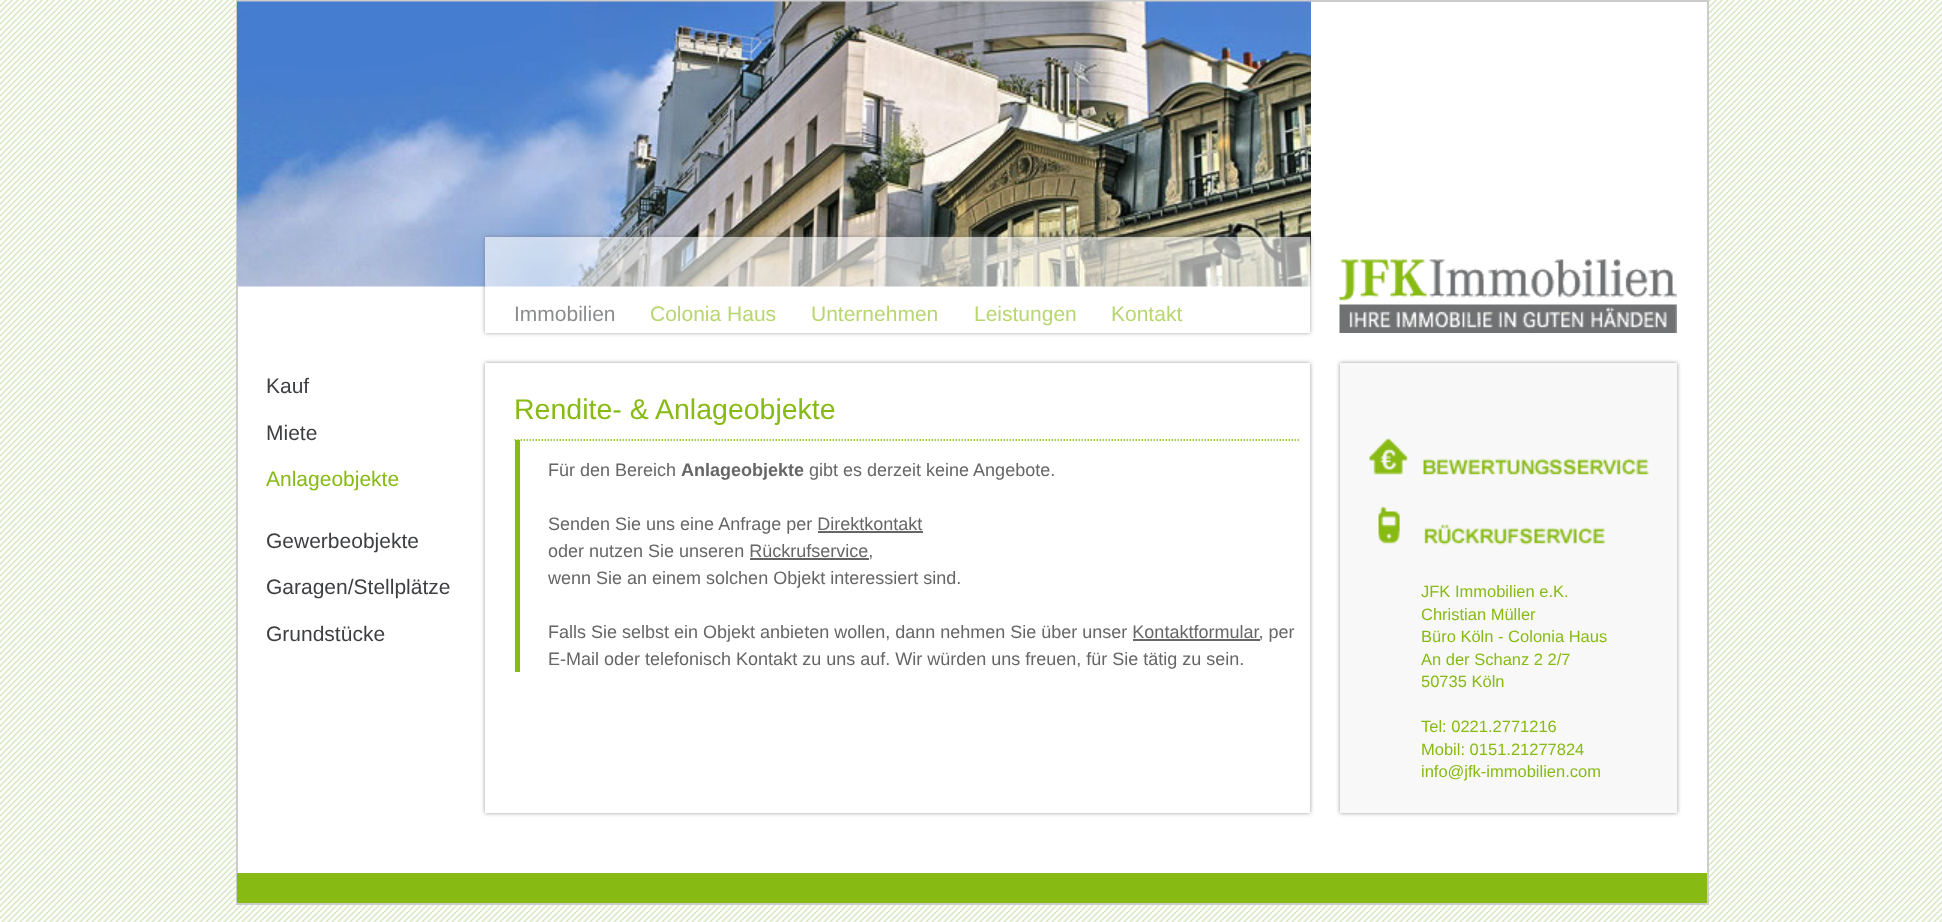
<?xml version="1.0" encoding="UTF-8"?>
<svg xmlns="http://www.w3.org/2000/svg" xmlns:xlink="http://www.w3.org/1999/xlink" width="1942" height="922">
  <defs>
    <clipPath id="clip1"><path d="M 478 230 h 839 v 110 h -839 z m 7 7 h 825 v 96 h -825 z" clip-rule="evenodd" /></clipPath>
    <clipPath id="clip2"><path d="M 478 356 h 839 v 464 h -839 z m 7 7 h 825 v 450 h -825 z" clip-rule="evenodd" /></clipPath>
  </defs>
  <rect width="100%" height="100%" fill="#ffffff" />
  <image x="0" y="0" width="1942" height="922" xlink:href="image1.png" />
  <rect x="238" y="2" width="1469" height="871" fill="#ffffff" />
  <rect x="237" y="1" width="1471" height="903" fill="none" stroke="#cccccc" stroke-width="2" />
  <image x="237" y="1" width="1074" height="286" xlink:href="image2.png" />
  <g clip-path="url(#clip1)">
    <rect x="485" y="237" width="825" height="96" fill="#666666" fill-opacity="0.6" filter="blur(2px)" />
  </g>
  <rect x="485" y="237" width="825" height="96" fill="#ffffff" fill-opacity="0.6" />
  <image x="1339" y="259" width="338" height="74" xlink:href="image3.png" />
  <g clip-path="url(#clip2)">
    <rect x="485" y="363" width="825" height="450" fill="#999999" filter="blur(2px)" />
  </g>
  <path d="M 514.5 440 h 784.5" fill="none" stroke="#88ba14" stroke-width="1.5" stroke-dasharray="1.5 1.5" />
  <rect x="515" y="440" width="5" height="232" fill="#88ba14" />
  <rect x="818" y="531" width="105" height="2" fill="#666666" />
  <rect x="750" y="558" width="119" height="2" fill="#666666" />
  <rect x="1133" y="639" width="127" height="2" fill="#666666" />
  <rect x="1340" y="363" width="337" height="450" fill="#999999" filter="blur(2px)" />
  <rect x="1340" y="363" width="337" height="450" fill="#f8f8f8" />
  <image x="1369" y="438" width="280" height="37" xlink:href="image4.png" />
  <image x="1378" y="506" width="228" height="39" xlink:href="image5.png" />
  <rect x="237" y="873" width="1470" height="30" fill="#88ba14" />
  <text x="514" y="321" style="font-family: Liberation Sans; font-size: 21px; fill: #8b8c8e">Immobilien</text>
  <text x="650" y="321" style="font-family: Liberation Sans; font-size: 21px; fill: #b8d672">Colonia Haus</text>
  <text x="811" y="321" style="font-family: Liberation Sans; font-size: 21px; fill: #b8d672">Unternehmen</text>
  <text x="974" y="321" style="font-family: Liberation Sans; font-size: 21px; fill: #b8d672">Leistungen</text>
  <text x="1111" y="321" style="font-family: Liberation Sans; font-size: 21px; fill: #b8d672">Kontakt</text>
  <text x="266" y="393" style="font-family: Liberation Sans; font-size: 21px; fill: #3e3f43">Kauf</text>
  <text x="266" y="440" style="font-family: Liberation Sans; font-size: 21px; fill: #3e3f43">Miete</text>
  <text x="266" y="486" style="font-family: Liberation Sans; font-size: 21px; fill: #88ba14">Anlageobjekte</text>
  <text x="266" y="548" style="font-family: Liberation Sans; font-size: 21px; fill: #3e3f43">Gewerbeobjekte</text>
  <text x="266" y="594" style="font-family: Liberation Sans; font-size: 21px; fill: #3e3f43">Garagen/Stellplätze</text>
  <text x="266" y="641" style="font-family: Liberation Sans; font-size: 21px; fill: #3e3f43">Grundstücke</text>
  <text x="514" y="419" style="font-family: Liberation Sans; font-size: 28.5px; fill: #88ba14">Rendite- &amp; Anlageobjekte</text>
  <text x="548" y="476" style="font-family: Liberation Sans; font-size: 18px; fill: #666666">Für den Bereich</text>
  <text x="681" y="476" style="font-family: Liberation Sans; font-size: 18px; font-weight: bold; fill: #666666">Anlageobjekte</text>
  <text x="809" y="476" style="font-family: Liberation Sans; font-size: 18px; fill: #666666">gibt es derzeit keine Angebote.</text>
  <text x="548" y="530" style="font-family: Liberation Sans; font-size: 18px; fill: #666666">Senden Sie uns eine Anfrage per Direktkontakt</text>
  <text x="548" y="557" style="font-family: Liberation Sans; font-size: 18px; fill: #666666">oder nutzen Sie unseren Rückrufservice,</text>
  <text x="548" y="584" style="font-family: Liberation Sans; font-size: 18px; fill: #666666">wenn Sie an einem solchen Objekt interessiert sind.</text>
  <text x="548" y="638" style="font-family: Liberation Sans; font-size: 18px; fill: #666666">Falls Sie selbst ein Objekt anbieten wollen, dann nehmen Sie über unser Kontaktformular, per</text>
  <text x="548" y="665" style="font-family: Liberation Sans; font-size: 18px; fill: #666666">E-Mail oder telefonisch Kontakt zu uns auf. Wir würden uns freuen, für Sie tätig zu sein.</text>
  <text x="1421" y="597" style="font-family: Liberation Sans; font-size: 16.5px; fill: #88ba14">JFK Immobilien e.K.</text>
  <text x="1421" y="620" style="font-family: Liberation Sans; font-size: 16.5px; fill: #88ba14">Christian Müller</text>
  <text x="1421" y="642" style="font-family: Liberation Sans; font-size: 16.5px; fill: #88ba14">Büro Köln - Colonia Haus</text>
  <text x="1421" y="665" style="font-family: Liberation Sans; font-size: 16.5px; fill: #88ba14">An der Schanz 2 2/7</text>
  <text x="1421" y="687" style="font-family: Liberation Sans; font-size: 16.5px; fill: #88ba14">50735 Köln</text>
  <text x="1421" y="732" style="font-family: Liberation Sans; font-size: 16.5px; fill: #88ba14">Tel: 0221.2771216</text>
  <text x="1421" y="755" style="font-family: Liberation Sans; font-size: 16.5px; fill: #88ba14">Mobil: 0151.21277824</text>
  <text x="1421" y="777" style="font-family: Liberation Sans; font-size: 16.5px; fill: #88ba14">info@jfk-immobilien.com</text>
</svg>
